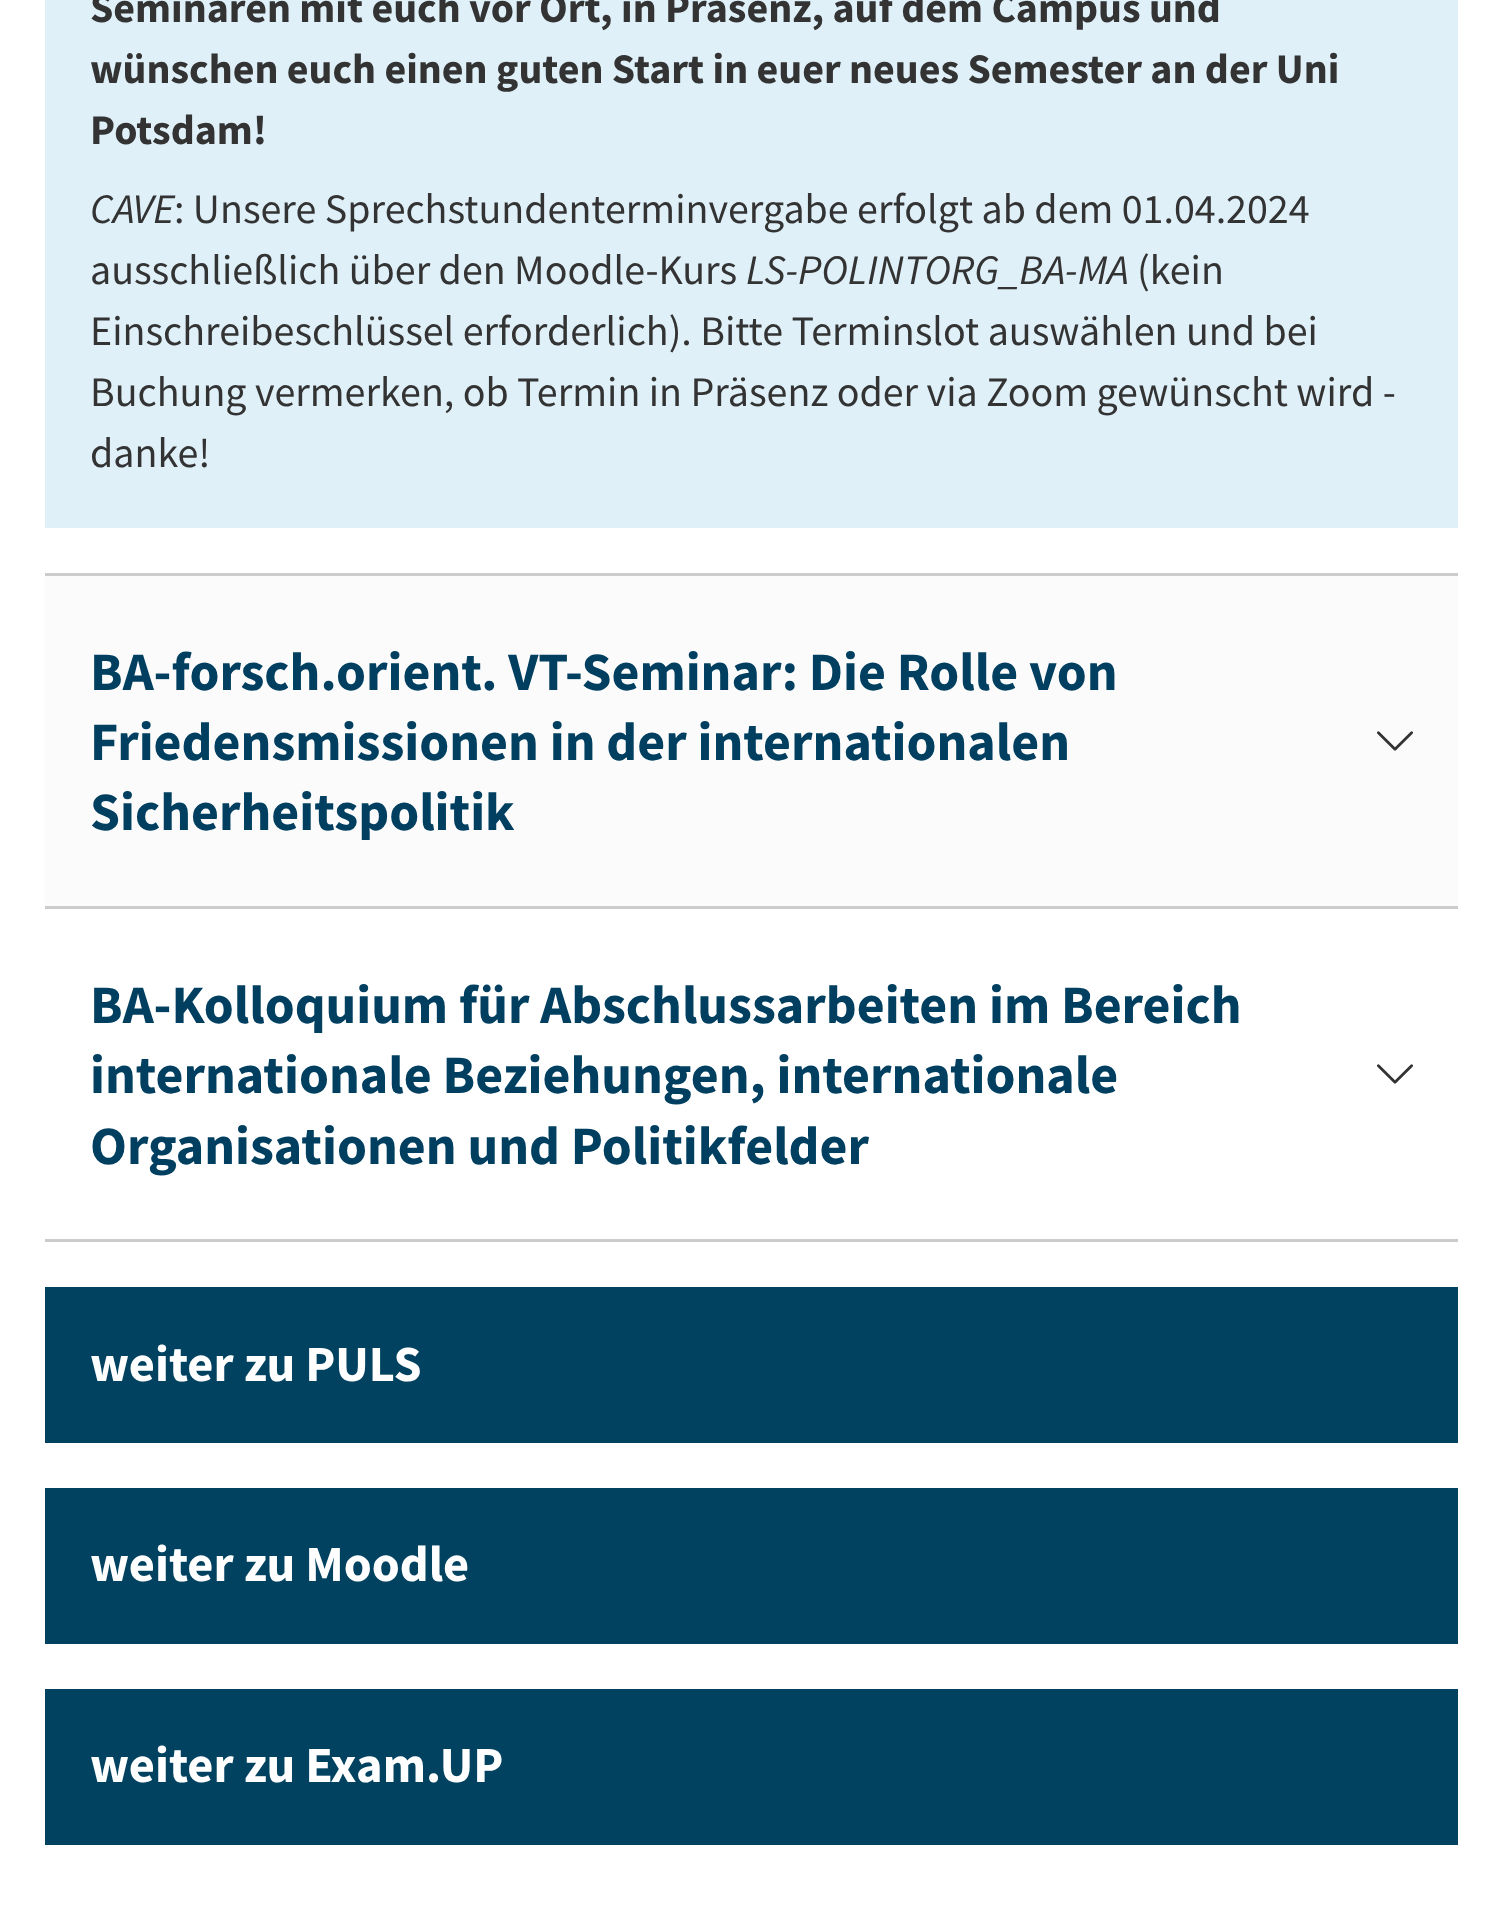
<?xml version="1.0" encoding="UTF-8"?>
<svg xmlns="http://www.w3.org/2000/svg" xmlns:xlink="http://www.w3.org/1999/xlink" width="1501" height="1905">
  <rect width="100%" height="100%" fill="#ffffff" />
  <rect x="45" width="1413" height="528" fill="#dff0f9" />
  <rect x="45" y="573" width="1413" height="3" fill="#cccccc" />
  <rect x="45" y="576" width="1413" height="330" fill="#fbfbfb" />
  <rect x="45" y="906" width="1413" height="3" fill="#cccccc" />
  <image x="1377" y="731" width="36" height="20" xlink:href="image1.png" />
  <rect x="45" y="1239" width="1413" height="3" fill="#cccccc" />
  <image x="1377" y="1064" width="36" height="20" xlink:href="image2.png" />
  <rect x="45" y="1287" width="1413" height="156" fill="#004260" />
  <rect x="45" y="1488" width="1413" height="156" fill="#004260" />
  <rect x="45" y="1689" width="1413" height="156" fill="#004260" />
  <text x="90" y="22" style="font-family: Source Sans Pro; font-size: 42px; font-weight: bold; fill: #333333">Seminaren mit euch vor Ort, in Präsenz, auf dem Campus und</text>
  <text x="90" y="83" style="font-family: Source Sans Pro; font-size: 42px; font-weight: bold; fill: #333333">wünschen euch einen guten Start in euer neues Semester an der Uni</text>
  <text x="90" y="144" style="font-family: Source Sans Pro; font-size: 42px; font-weight: bold; fill: #333333">Potsdam!</text>
  <text x="90" y="223" style="font-family: Source Sans Pro; font-size: 42px; font-style: italic; fill: #333333">CAVE</text>
  <text x="174" y="223" style="font-family: Source Sans Pro; font-size: 42px; fill: #333333">: Unsere Sprechstundenterminvergabe erfolgt ab dem 01.04.2024</text>
  <text x="90" y="284" style="font-family: Source Sans Pro; font-size: 42px; fill: #333333">ausschließlich über den Moodle-Kurs</text>
  <text x="746" y="284" style="font-family: Source Sans Pro; font-size: 42px; font-style: italic; fill: #333333">LS-POLINTORG_BA-MA</text>
  <text x="1137" y="284" style="font-family: Source Sans Pro; font-size: 42px; fill: #333333">(kein</text>
  <text x="90" y="345" style="font-family: Source Sans Pro; font-size: 42px; fill: #333333">Einschreibeschlüssel erforderlich). Bitte Terminslot auswählen und bei</text>
  <text x="90" y="406" style="font-family: Source Sans Pro; font-size: 42px; fill: #333333">Buchung vermerken, ob Termin in Präsenz oder via Zoom gewünscht wird -</text>
  <text x="90" y="467" style="font-family: Source Sans Pro; font-size: 42px; fill: #333333">danke!</text>
  <text x="90" y="690" style="font-family: Source Sans Pro; font-size: 54px; font-weight: bold; fill: #003f60">BA-forsch.orient. VT-Seminar: Die Rolle von</text>
  <text x="90" y="760" style="font-family: Source Sans Pro; font-size: 54px; font-weight: bold; fill: #003f60">Friedensmissionen in der internationalen</text>
  <text x="90" y="830" style="font-family: Source Sans Pro; font-size: 54px; font-weight: bold; fill: #003f60">Sicherheitspolitik</text>
  <text x="90" y="1023" style="font-family: Source Sans Pro; font-size: 54px; font-weight: bold; fill: #003f60">BA-Kolloquium für Abschlussarbeiten im Bereich</text>
  <text x="90" y="1093" style="font-family: Source Sans Pro; font-size: 54px; font-weight: bold; fill: #003f60">internationale Beziehungen, internationale</text>
  <text x="90" y="1164" style="font-family: Source Sans Pro; font-size: 54px; font-weight: bold; fill: #003f60">Organisationen und Politikfelder</text>
  <text x="90" y="1381" style="font-family: Source Sans Pro; font-size: 50.5px; font-weight: bold; fill: #ffffff">weiter zu PULS</text>
  <text x="90" y="1581" style="font-family: Source Sans Pro; font-size: 50.5px; font-weight: bold; fill: #ffffff">weiter zu Moodle</text>
  <text x="90" y="1782" style="font-family: Source Sans Pro; font-size: 50.5px; font-weight: bold; fill: #ffffff">weiter zu Exam.UP</text>
</svg>
